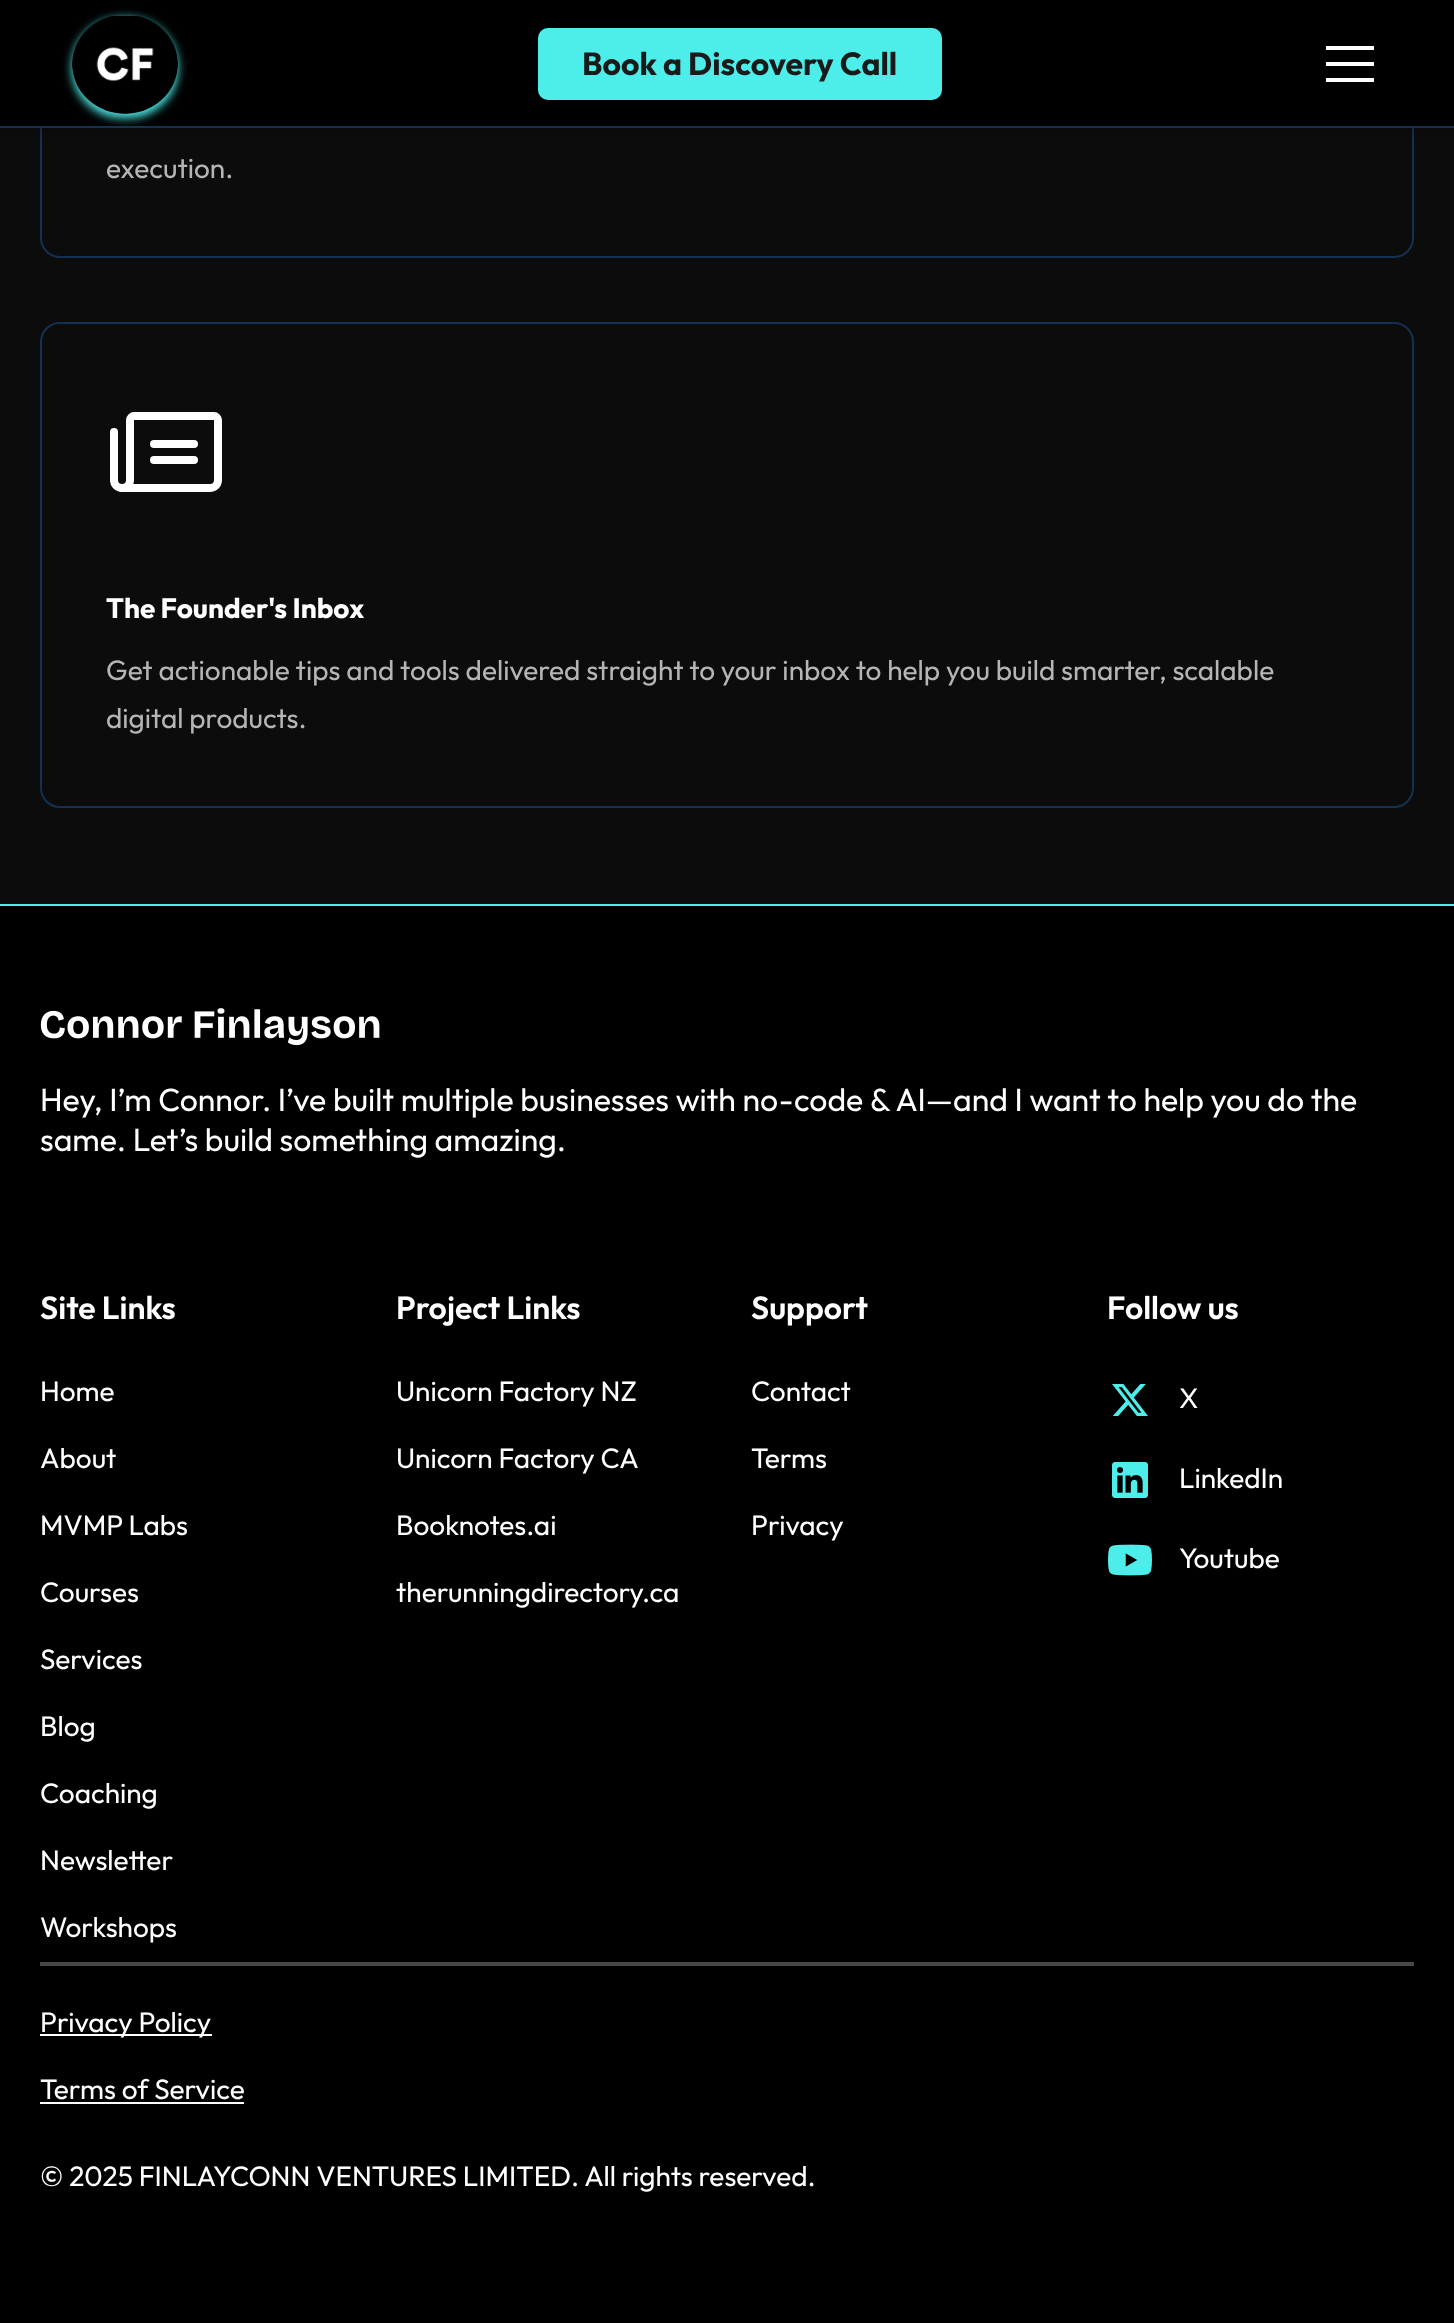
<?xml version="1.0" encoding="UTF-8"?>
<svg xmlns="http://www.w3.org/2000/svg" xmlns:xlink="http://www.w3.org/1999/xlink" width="1454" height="2323">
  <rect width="100%" height="100%" fill="#0c0c0c" />
  <rect x="41" y="-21" width="1372" height="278" rx="19" fill="none" stroke="#143151" stroke-width="2" />
  <rect y="4" width="1454" height="128" fill="#000000" fill-opacity="0.2" filter="blur(5px)" />
  <rect width="1454" height="126" fill="#000000" />
  <rect y="126" width="1454" height="2" fill="#143151" />
  <rect x="72" y="18" width="106" height="100" rx="50" fill="#4deeea" filter="blur(5px)" />
  <image x="72" y="16" width="106" height="98" xlink:href="image1.png" />
  <rect x="540" y="30" width="400" height="68" rx="8" fill="#4deeea" stroke="#4deeea" stroke-width="4" />
  <rect x="1326" y="46" width="48" height="4" fill="#ffffff" />
  <rect x="1326" y="62" width="48" height="4" fill="#ffffff" />
  <rect x="1326" y="78" width="48" height="4" fill="#ffffff" />
  <rect x="41" y="323" width="1372" height="484" rx="19" fill="none" stroke="#143151" stroke-width="2" />
  <path d="M 122 488 c -4.5 0 -8 -3.5 -8 -8 v -48" fill="none" stroke="#ffffff" stroke-width="8" stroke-linecap="round" stroke-linejoin="round" />
  <path d="M 122 488 c 4.5 0 8 -3.5 8 -8 v -60 c 0 -2 2 -4 4 -4 h 80 c 2 0 4 2 4 4 v 60 c 0 4.5 -3.5 8 -8 8 z" fill="none" stroke="#ffffff" stroke-width="8" stroke-linecap="round" stroke-linejoin="round" />
  <path d="M 154 460 h 40 m -40 -16 h 40" fill="none" stroke="#ffffff" stroke-width="8" stroke-linecap="round" stroke-linejoin="round" />
  <rect y="906" width="1454" height="1417" fill="#000000" />
  <rect y="904" width="1454" height="2" fill="#4deeea" />
  <image x="40" y="1008" width="340" height="38" xlink:href="image2.png" />
  <image x="1112" y="1384" width="36" height="32" xlink:href="image3.png" />
  <image x="1112" y="1462" width="36" height="36" xlink:href="image4.png" />
  <image x="1108" y="1544" width="44" height="32" xlink:href="image5.png" />
  <rect x="40" y="1962" width="1374" height="4" fill="#474747" />
  <rect x="40" y="2034" width="172" height="2" fill="#ffffff" />
  <rect x="40" y="2102" width="204" height="2" fill="#ffffff" />
  <text x="582" y="75" style="font-family: Outfit; font-size: 32px; font-weight: bold; fill: #1a1a1a">Book a Discovery Call</text>
  <text x="106" y="178" style="font-family: Outfit; font-size: 28px; fill: #b5b5b5">execution.</text>
  <text x="106" y="618" style="font-family: Outfit; font-size: 28px; font-weight: bold; fill: #ffffff">The Founder's Inbox</text>
  <text x="106" y="680" style="font-family: Outfit; font-size: 28px; fill: #b5b5b5">Get actionable tips and tools delivered straight to your inbox to help you build smarter, scalable</text>
  <text x="106" y="728" style="font-family: Outfit; font-size: 28px; fill: #b5b5b5">digital products.</text>
  <text x="40" y="1111" style="font-family: Outfit; font-size: 32px; fill: #ffffff">Hey, I’m Connor. I’ve built multiple businesses with no-code &amp; AI—and I want to help you do the</text>
  <text x="40" y="1151" style="font-family: Outfit; font-size: 32px; fill: #ffffff">same. Let’s build something amazing.</text>
  <text x="40" y="1319" style="font-family: Outfit; font-size: 32px; font-weight: 600; fill: #ffffff">Site Links</text>
  <text x="40" y="1401" style="font-family: Outfit; font-size: 28px; fill: #ffffff">Home</text>
  <text x="40" y="1468" style="font-family: Outfit; font-size: 28px; fill: #ffffff">About</text>
  <text x="40" y="1535" style="font-family: Outfit; font-size: 28px; fill: #ffffff">MVMP Labs</text>
  <text x="40" y="1602" style="font-family: Outfit; font-size: 28px; fill: #ffffff">Courses</text>
  <text x="40" y="1669" style="font-family: Outfit; font-size: 28px; fill: #ffffff">Services</text>
  <text x="40" y="1736" style="font-family: Outfit; font-size: 28px; fill: #ffffff">Blog</text>
  <text x="40" y="1803" style="font-family: Outfit; font-size: 28px; fill: #ffffff">Coaching</text>
  <text x="40" y="1870" style="font-family: Outfit; font-size: 28px; fill: #ffffff">Newsletter</text>
  <text x="40" y="1937" style="font-family: Outfit; font-size: 28px; fill: #ffffff">Workshops</text>
  <text x="396" y="1319" style="font-family: Outfit; font-size: 32px; font-weight: 600; fill: #ffffff">Project Links</text>
  <text x="396" y="1401" style="font-family: Outfit; font-size: 28px; fill: #ffffff">Unicorn Factory NZ</text>
  <text x="396" y="1468" style="font-family: Outfit; font-size: 28px; fill: #ffffff">Unicorn Factory CA</text>
  <text x="396" y="1535" style="font-family: Outfit; font-size: 28px; fill: #ffffff">Booknotes.ai</text>
  <text x="396" y="1602" style="font-family: Outfit; font-size: 28px; fill: #ffffff">therunningdirectory.ca</text>
  <text x="751" y="1319" style="font-family: Outfit; font-size: 32px; font-weight: 600; fill: #ffffff">Support</text>
  <text x="751" y="1401" style="font-family: Outfit; font-size: 28px; fill: #ffffff">Contact</text>
  <text x="751" y="1468" style="font-family: Outfit; font-size: 28px; fill: #ffffff">Terms</text>
  <text x="751" y="1535" style="font-family: Outfit; font-size: 28px; fill: #ffffff">Privacy</text>
  <text x="1107" y="1319" style="font-family: Outfit; font-size: 32px; font-weight: 600; fill: #ffffff">Follow us</text>
  <text x="1179" y="1408" style="font-family: Outfit; font-size: 28px; fill: #ffffff">X</text>
  <text x="1179" y="1488" style="font-family: Outfit; font-size: 28px; fill: #ffffff">LinkedIn</text>
  <text x="1179" y="1568" style="font-family: Outfit; font-size: 28px; fill: #ffffff">Youtube</text>
  <text x="40" y="2032" style="font-family: Outfit; font-size: 28px; fill: #ffffff">Privacy Policy</text>
  <text x="40" y="2099" style="font-family: Outfit; font-size: 28px; fill: #ffffff">Terms of Service</text>
  <text x="40" y="2186" style="font-family: Outfit; font-size: 28px; fill: #ffffff">© 2025 FINLAYCONN VENTURES LIMITED. All rights reserved.</text>
</svg>
